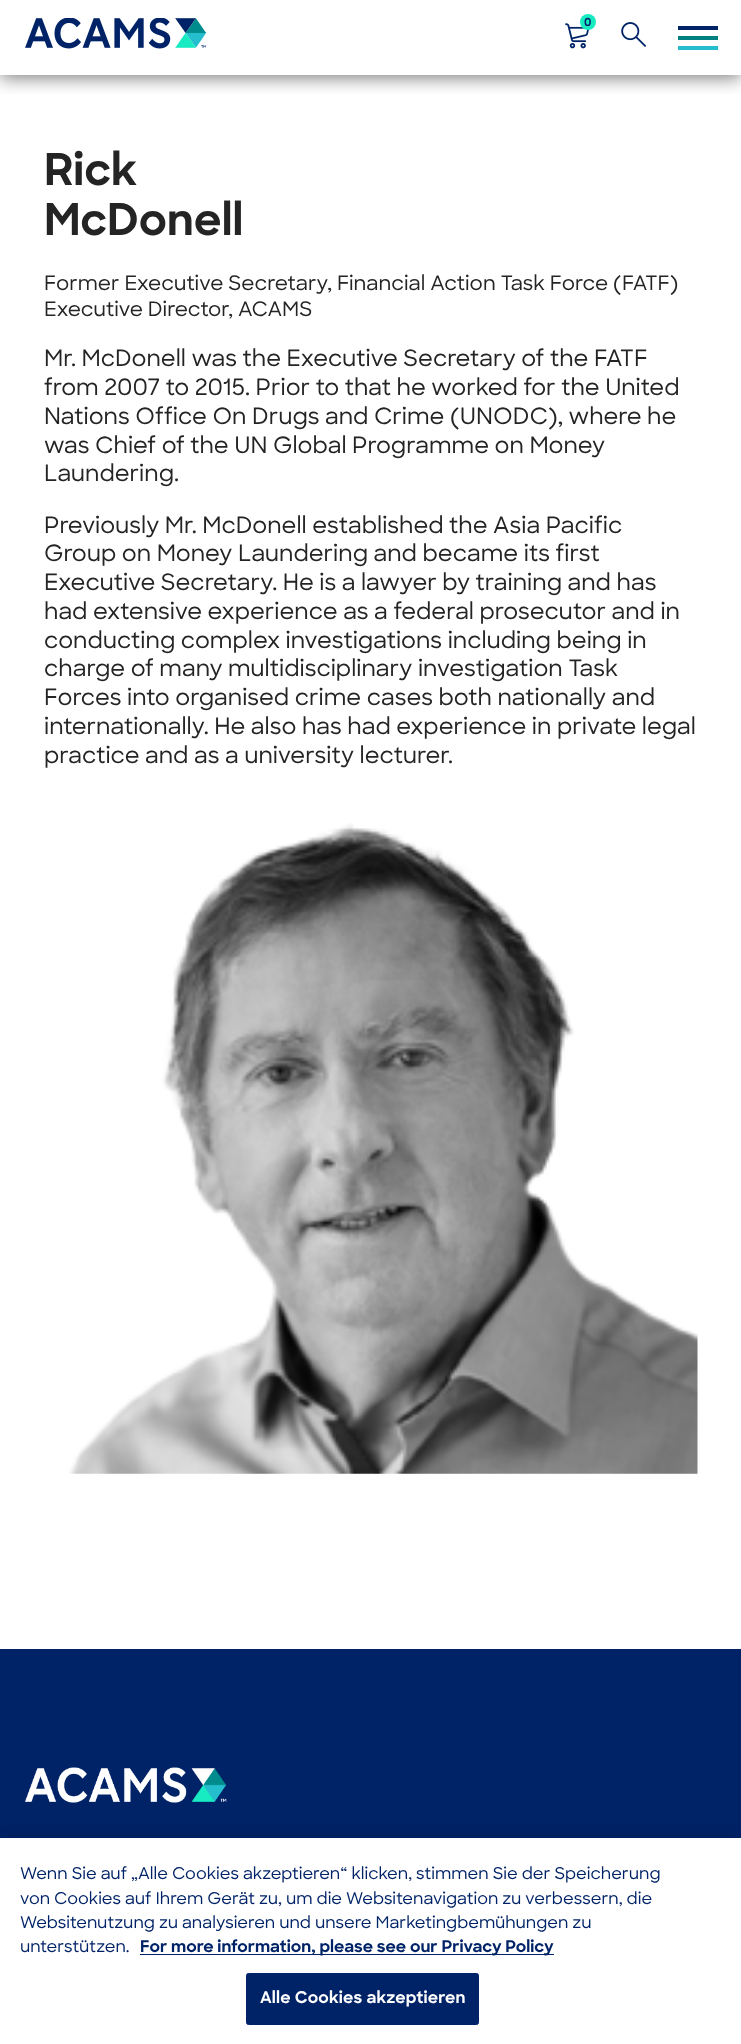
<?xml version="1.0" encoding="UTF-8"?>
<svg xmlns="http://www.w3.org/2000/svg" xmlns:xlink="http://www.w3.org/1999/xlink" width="741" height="2044">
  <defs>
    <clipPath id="clip1"><rect x="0" y="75" width="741" height="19" /></clipPath>
  </defs>
  <rect width="100%" height="100%" fill="#ffffff" />
  <g clip-path="url(#clip1)">
    <rect y="3" width="741" height="75" fill="#000000" fill-opacity="0.5" filter="blur(9px)" />
  </g>
  <image x="25" y="18" width="181" height="31" xlink:href="image1.png" />
  <image x="565" y="23" width="25" height="26" xlink:href="image2.png" />
  <circle cx="588" cy="22" r="8" fill="#18eac2" />
  <image x="621" y="22" width="26" height="25" xlink:href="image3.png" />
  <rect x="678" y="26" width="40" height="4" fill="#002368" />
  <rect x="678" y="36" width="40" height="4" fill="#008080" />
  <rect x="678" y="46" width="40" height="4" fill="#25bece" />
  <image x="69" y="823" width="629" height="651" xlink:href="image4.png" />
  <rect y="1649" width="741" height="189" fill="#002368" />
  <image x="25" y="1767" width="202" height="36" xlink:href="image5.png" />
  <rect y="1838" width="741" height="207" fill="#000000" fill-opacity="0.2" filter="blur(11px)" />
  <rect y="1838" width="741" height="206" fill="#ffffff" />
  <rect x="140" y="1954" width="414" height="1" fill="#002368" />
  <rect x="246.5" y="1973.5" width="232" height="51" rx="2" fill="#002368" stroke="#002368" />
  <text x="584" y="26" style="font-family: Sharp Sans; font-size: 11px; font-weight: bold; fill: #002368">0</text>
  <text x="44" y="185" style="font-family: Sharp Sans; font-size: 43.75px; font-weight: bold; fill: #242424">Rick</text>
  <text x="44" y="235" style="font-family: Sharp Sans; font-size: 43.75px; font-weight: bold; fill: #242424">McDonell</text>
  <text x="44" y="290" style="font-family: Sharp Sans; font-size: 20px; font-weight: 500; fill: #242424">Former Executive Secretary, Financial Action Task Force (FATF)</text>
  <text x="44" y="316" style="font-family: Sharp Sans; font-size: 20px; font-weight: 500; fill: #242424">Executive Director, ACAMS</text>
  <text x="44" y="366" style="font-family: Sharp Sans; font-size: 22.5px; font-weight: 500; fill: #242424">Mr. McDonell was the Executive Secretary of the FATF</text>
  <text x="44" y="395" style="font-family: Sharp Sans; font-size: 22.5px; font-weight: 500; fill: #242424">from 2007 to 2015. Prior to that he worked for the United</text>
  <text x="44" y="424" style="font-family: Sharp Sans; font-size: 22.5px; font-weight: 500; fill: #242424">Nations Office On Drugs and Crime (UNODC), where he</text>
  <text x="44" y="453" style="font-family: Sharp Sans; font-size: 22.5px; font-weight: 500; fill: #242424">was Chief of the UN Global Programme on Money</text>
  <text x="44" y="481" style="font-family: Sharp Sans; font-size: 22.5px; font-weight: 500; fill: #242424">Laundering.</text>
  <text x="44" y="533" style="font-family: Sharp Sans; font-size: 22.5px; font-weight: 500; fill: #242424">Previously Mr. McDonell established the Asia Pacific</text>
  <text x="44" y="561" style="font-family: Sharp Sans; font-size: 22.5px; font-weight: 500; fill: #242424">Group on Money Laundering and became its first</text>
  <text x="44" y="590" style="font-family: Sharp Sans; font-size: 22.5px; font-weight: 500; fill: #242424">Executive Secretary. He is a lawyer by training and has</text>
  <text x="44" y="619" style="font-family: Sharp Sans; font-size: 22.5px; font-weight: 500; fill: #242424">had extensive experience as a federal prosecutor and in</text>
  <text x="44" y="648" style="font-family: Sharp Sans; font-size: 22.5px; font-weight: 500; fill: #242424">conducting complex investigations including being in</text>
  <text x="44" y="676" style="font-family: Sharp Sans; font-size: 22.5px; font-weight: 500; fill: #242424">charge of many multidisciplinary investigation Task</text>
  <text x="44" y="705" style="font-family: Sharp Sans; font-size: 22.5px; font-weight: 500; fill: #242424">Forces into organised crime cases both nationally and</text>
  <text x="44" y="734" style="font-family: Sharp Sans; font-size: 22.5px; font-weight: 500; fill: #242424">internationally. He also has had experience in private legal</text>
  <text x="44" y="763" style="font-family: Sharp Sans; font-size: 22.5px; font-weight: 500; fill: #242424">practice and as a university lecturer.</text>
  <text x="20" y="1879" style="font-family: Sharp Sans; font-size: 16.25px; font-weight: 500; fill: #002368">Wenn Sie auf „Alle Cookies akzeptieren“ klicken, stimmen Sie der Speicherung</text>
  <text x="20" y="1904" style="font-family: Sharp Sans; font-size: 16.25px; font-weight: 500; fill: #002368">von Cookies auf Ihrem Gerät zu, um die Websitenavigation zu verbessern, die</text>
  <text x="20" y="1928" style="font-family: Sharp Sans; font-size: 16.25px; font-weight: 500; fill: #002368">Websitenutzung zu analysieren und unsere Marketingbemühungen zu</text>
  <text x="20" y="1952" style="font-family: Sharp Sans; font-size: 16.25px; font-weight: 500; fill: #002368">unterstützen.</text>
  <text x="140" y="1952" style="font-family: Sharp Sans; font-size: 16.25px; font-weight: bold; fill: #002368">For more information, please see our Privacy Policy</text>
  <text x="260" y="2003" style="font-family: Sharp Sans; font-size: 16.25px; font-weight: bold; letter-spacing: 0.2px; fill: #ffffff">Alle Cookies akzeptieren</text>
</svg>
